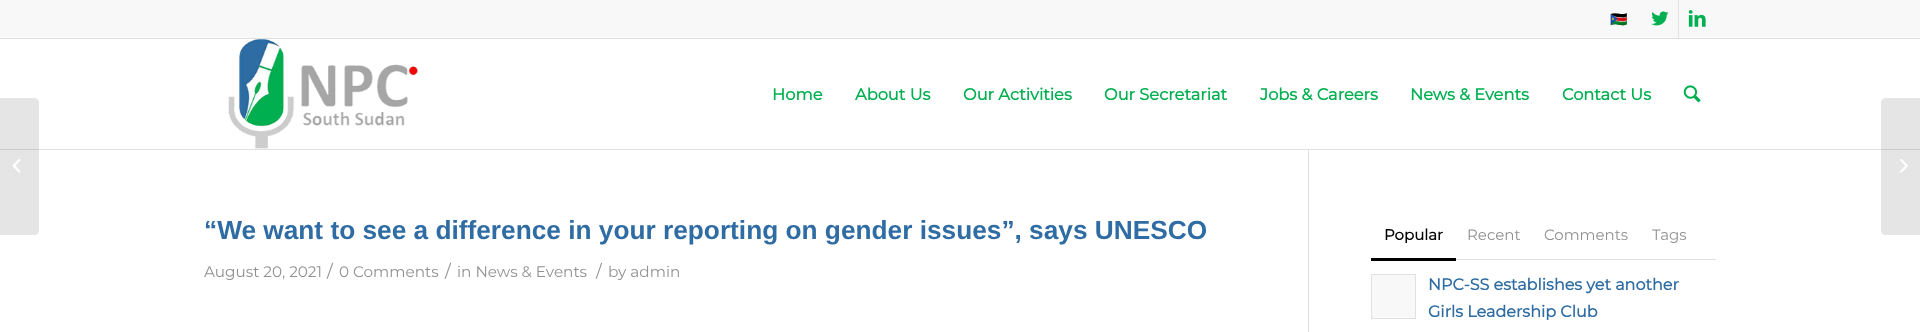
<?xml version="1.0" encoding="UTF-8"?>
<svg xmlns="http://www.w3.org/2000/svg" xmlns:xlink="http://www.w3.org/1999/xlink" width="1920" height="332">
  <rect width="100%" height="100%" fill="#ffffff" />
  <rect width="1920" height="38" fill="#f8f8f8" />
  <rect y="38" width="1920" height="1" fill="#e1e1e1" />
  <rect x="1678" width="1" height="38" fill="#e1e1e1" />
  <image x="1651" y="11" width="18" height="15" xlink:href="image1.png" />
  <image x="1688" y="10" width="18" height="17" xlink:href="image2.png" />
  <rect y="149" width="1920" height="1" fill="#e1e1e1" />
  <image x="228" y="39" width="190" height="110" xlink:href="image3.png" />
  <image x="1683" y="85" width="18" height="18" xlink:href="image4.png" />
  <path d="M 0 98 h 34 c 3 0 5 2 5 5 v 127 c 0 3 -2 5 -5 5 h -34 z" fill="#000000" fill-opacity="0.1" />
  <image x="12" y="159" width="9" height="14" xlink:href="image5.png" />
  <path d="M 1886 98 h 34 v 137 h -34 c -3 0 -5 -2 -5 -5 v -127 c 0 -3 2 -5 5 -5 z" fill="#000000" fill-opacity="0.1" />
  <image x="1900" y="159" width="8" height="14" xlink:href="image6.png" />
  <rect x="1308" y="150" width="1" height="182" fill="#e1e1e1" />
  <rect x="1456" y="259" width="260" height="1" fill="#e1e1e1" />
  <rect x="1371" y="258" width="85" height="3" fill="#000000" />
  <rect x="1371.5" y="274.5" width="44" height="44" fill="#f8f8f8" stroke="#e1e1e1" />
  <text x="1610" y="24" style="font-family: Noto Color Emoji; font-size: 14px; font-weight: bold; fill: #00af4f">🇸🇸</text>
  <text x="772" y="100" style="font-family: Montserrat; font-size: 16.25px; font-weight: bold; fill: #00af4f">Home</text>
  <text x="855" y="100" style="font-family: Montserrat; font-size: 16.25px; font-weight: bold; fill: #00af4f">About Us</text>
  <text x="963" y="100" style="font-family: Montserrat; font-size: 16.25px; font-weight: bold; fill: #00af4f">Our Activities</text>
  <text x="1104" y="100" style="font-family: Montserrat; font-size: 16.25px; font-weight: bold; fill: #00af4f">Our Secretariat</text>
  <text x="1260" y="100" style="font-family: Montserrat; font-size: 16.25px; font-weight: bold; fill: #00af4f">Jobs &amp; Careers</text>
  <text x="1410" y="100" style="font-family: Montserrat; font-size: 16.25px; font-weight: bold; fill: #00af4f">News &amp; Events</text>
  <text x="1562" y="100" style="font-family: Montserrat; font-size: 16.25px; font-weight: bold; fill: #00af4f">Contact Us</text>
  <text x="204" y="239" style="font-family: Liberation Sans; font-size: 26.25px; font-weight: bold; fill: #2e6ca3">“We want to see a difference in your reporting on gender issues”, says UNESCO</text>
  <text x="204" y="277" style="font-family: Montserrat; font-size: 15.25px; font-weight: 100; fill: #919191">August 20, 2021</text>
  <text x="327" y="277" style="font-family: Montserrat; font-size: 17px; font-weight: 100; fill: #919191">/</text>
  <text x="339" y="277" style="font-family: Montserrat; font-size: 15.25px; font-weight: 100; fill: #919191">0 Comments</text>
  <text x="445" y="277" style="font-family: Montserrat; font-size: 17px; font-weight: 100; fill: #919191">/</text>
  <text x="457" y="277" style="font-family: Montserrat; font-size: 15.25px; font-weight: 100; fill: #919191">in News &amp; Events</text>
  <text x="596" y="277" style="font-family: Montserrat; font-size: 17px; font-weight: 100; fill: #919191">/</text>
  <text x="608" y="277" style="font-family: Montserrat; font-size: 15.25px; font-weight: 100; fill: #919191">by admin</text>
  <text x="1384" y="240" style="font-family: Montserrat; font-size: 15px; font-weight: bold; fill: #000000">Popular</text>
  <text x="1467" y="240" style="font-family: Montserrat; font-size: 15px; font-weight: 100; fill: #919191">Recent</text>
  <text x="1544" y="240" style="font-family: Montserrat; font-size: 15px; font-weight: 100; fill: #919191">Comments</text>
  <text x="1652" y="240" style="font-family: Montserrat; font-size: 15px; font-weight: 100; fill: #919191">Tags</text>
  <text x="1428" y="290" style="font-family: Montserrat; font-size: 16px; font-weight: bold; fill: #2e6ca3">NPC-SS establishes yet another</text>
  <text x="1428" y="317" style="font-family: Montserrat; font-size: 16px; font-weight: bold; fill: #2e6ca3">Girls Leadership Club</text>
</svg>
